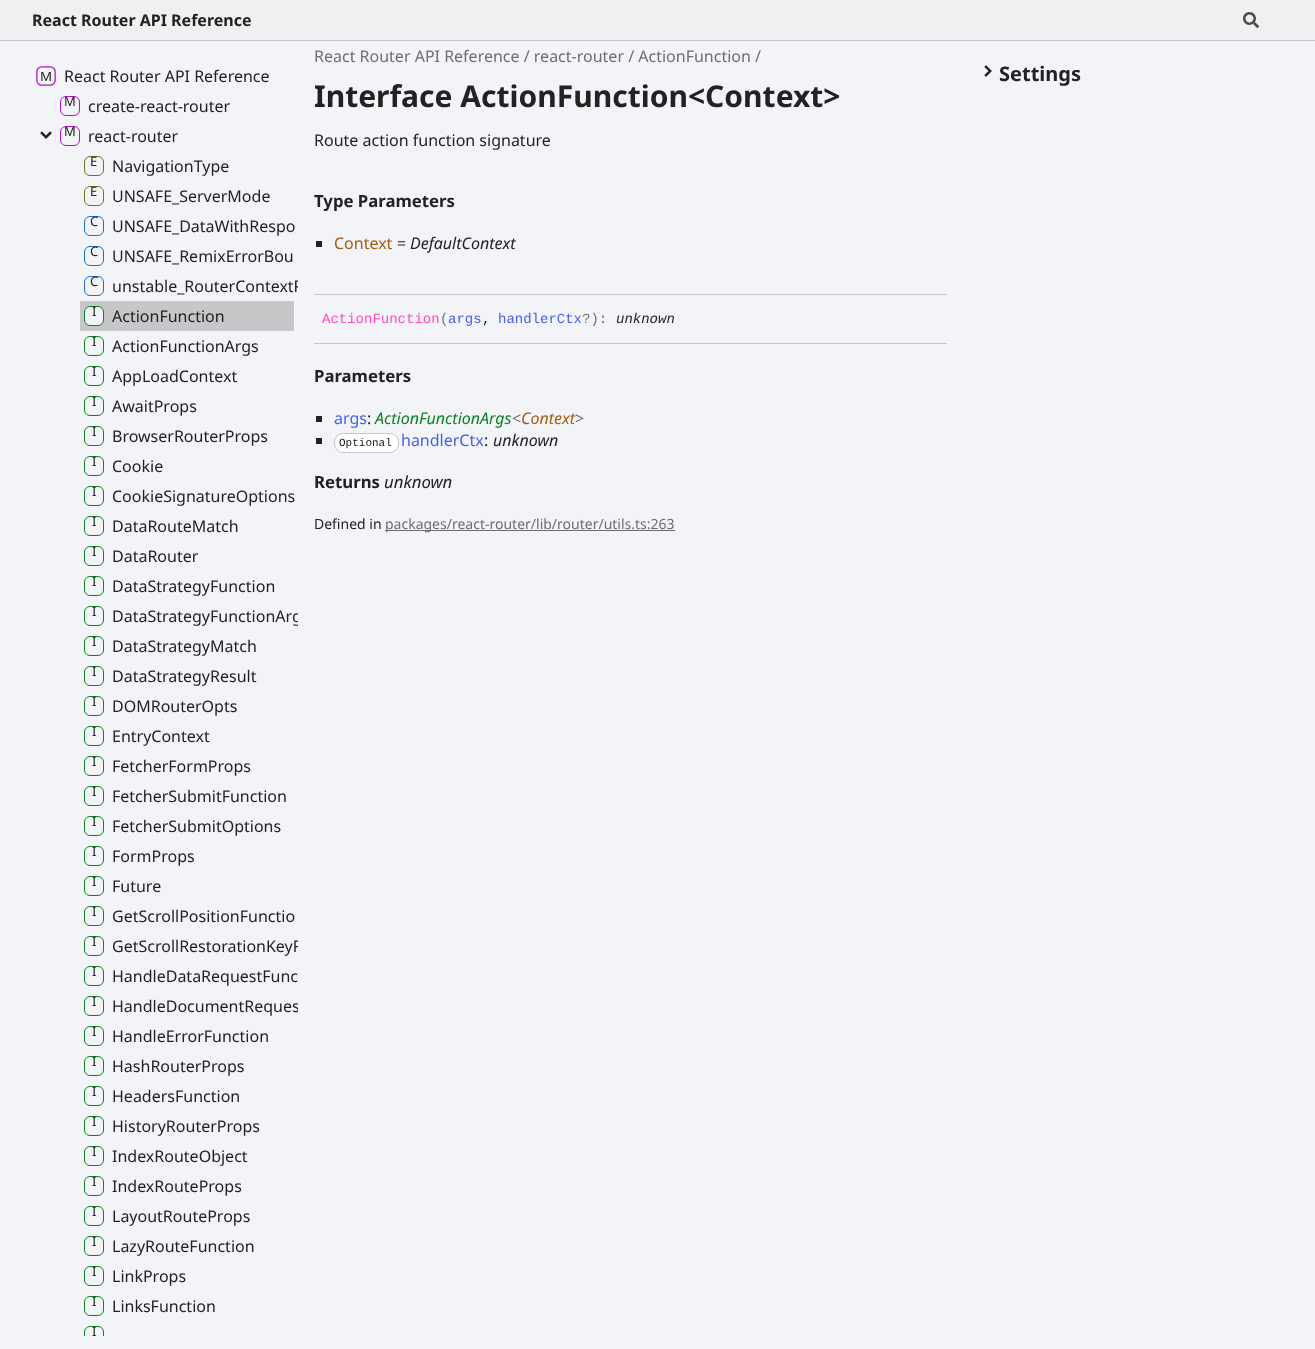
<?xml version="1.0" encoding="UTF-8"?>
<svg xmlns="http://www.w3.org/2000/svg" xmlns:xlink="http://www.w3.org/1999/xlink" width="1315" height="1349">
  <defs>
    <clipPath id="clip1"><rect x="84" y="1326" width="20" height="10" /></clipPath>
    <clipPath id="clip2"><rect x="32" y="61" width="266" height="1275" /></clipPath>
  </defs>
  <rect width="100%" height="100%" fill="#f2f4f8" />
  <rect width="1315" height="40" fill="#eff0f1" />
  <rect y="40" width="1315" height="1" fill="#c5c7c9" />
  <image x="1243" y="12" width="16" height="16" xlink:href="image1.png" />
  <rect x="316" y="241" width="6" height="6" fill="#222222" />
  <rect x="314" y="294" width="633" height="1" fill="#c5c7c9" />
  <rect x="314" y="343" width="633" height="1" fill="#c5c7c9" />
  <rect x="316" y="416" width="6" height="6" fill="#222222" />
  <rect x="316" y="438" width="6" height="6" fill="#222222" />
  <rect x="334.5" y="433.5" width="64" height="19" rx="8.5" fill="#ffffff" stroke="#c5c7c9" />
  <rect x="385" y="530" width="290" height="1" fill="#6e6e6e" />
  <image x="36" y="66" width="20" height="20" xlink:href="image2.png" />
  <rect x="60.5" y="96.5" width="19" height="19" rx="5.5" fill="none" stroke="#b111c9" />
  <image x="40" y="131" width="12" height="8" xlink:href="image3.png" />
  <rect x="60.5" y="126.5" width="19" height="19" rx="5.5" fill="none" stroke="#b111c9" />
  <rect x="84.5" y="156.5" width="19" height="19" rx="5.5" fill="none" stroke="#7e6f15" />
  <rect x="84.5" y="186.5" width="19" height="19" rx="5.5" fill="none" stroke="#7e6f15" />
  <rect x="84.5" y="216.5" width="19" height="19" rx="5.5" fill="none" stroke="#1f70c2" />
  <rect x="84.5" y="246.5" width="19" height="19" rx="5.5" fill="none" stroke="#1f70c2" />
  <rect x="84.5" y="276.5" width="19" height="19" rx="5.5" fill="none" stroke="#1f70c2" />
  <rect x="80" y="301" width="214" height="30" fill="#c5c7c9" />
  <rect x="84.5" y="306.5" width="19" height="19" rx="5.5" fill="#f2f4f8" stroke="#108024" />
  <rect x="84.5" y="336.5" width="19" height="19" rx="5.5" fill="none" stroke="#108024" />
  <rect x="84.5" y="366.5" width="19" height="19" rx="5.5" fill="none" stroke="#108024" />
  <rect x="84.5" y="396.5" width="19" height="19" rx="5.5" fill="none" stroke="#108024" />
  <rect x="84.5" y="426.5" width="19" height="19" rx="5.5" fill="none" stroke="#108024" />
  <rect x="84.5" y="456.5" width="19" height="19" rx="5.5" fill="none" stroke="#108024" />
  <rect x="84.5" y="486.5" width="19" height="19" rx="5.5" fill="none" stroke="#108024" />
  <rect x="84.5" y="516.5" width="19" height="19" rx="5.5" fill="none" stroke="#108024" />
  <rect x="84.5" y="546.5" width="19" height="19" rx="5.5" fill="none" stroke="#108024" />
  <rect x="84.5" y="576.5" width="19" height="19" rx="5.5" fill="none" stroke="#108024" />
  <rect x="84.5" y="606.5" width="19" height="19" rx="5.5" fill="none" stroke="#108024" />
  <rect x="84.5" y="636.5" width="19" height="19" rx="5.5" fill="none" stroke="#108024" />
  <rect x="84.5" y="666.5" width="19" height="19" rx="5.5" fill="none" stroke="#108024" />
  <rect x="84.5" y="696.5" width="19" height="19" rx="5.5" fill="none" stroke="#108024" />
  <rect x="84.5" y="726.5" width="19" height="19" rx="5.5" fill="none" stroke="#108024" />
  <rect x="84.5" y="756.5" width="19" height="19" rx="5.5" fill="none" stroke="#108024" />
  <rect x="84.5" y="786.5" width="19" height="19" rx="5.5" fill="none" stroke="#108024" />
  <rect x="84.5" y="816.5" width="19" height="19" rx="5.5" fill="none" stroke="#108024" />
  <rect x="84.5" y="846.5" width="19" height="19" rx="5.5" fill="none" stroke="#108024" />
  <rect x="84.5" y="876.5" width="19" height="19" rx="5.5" fill="none" stroke="#108024" />
  <rect x="84.5" y="906.5" width="19" height="19" rx="5.5" fill="none" stroke="#108024" />
  <rect x="84.5" y="936.5" width="19" height="19" rx="5.5" fill="none" stroke="#108024" />
  <rect x="84.5" y="966.5" width="19" height="19" rx="5.5" fill="none" stroke="#108024" />
  <rect x="84.5" y="996.5" width="19" height="19" rx="5.5" fill="none" stroke="#108024" />
  <rect x="84.5" y="1026.5" width="19" height="19" rx="5.5" fill="none" stroke="#108024" />
  <rect x="84.5" y="1056.5" width="19" height="19" rx="5.5" fill="none" stroke="#108024" />
  <rect x="84.5" y="1086.5" width="19" height="19" rx="5.5" fill="none" stroke="#108024" />
  <rect x="84.5" y="1116.5" width="19" height="19" rx="5.5" fill="none" stroke="#108024" />
  <rect x="84.5" y="1146.5" width="19" height="19" rx="5.5" fill="none" stroke="#108024" />
  <rect x="84.5" y="1176.5" width="19" height="19" rx="5.5" fill="none" stroke="#108024" />
  <rect x="84.5" y="1206.5" width="19" height="19" rx="5.5" fill="none" stroke="#108024" />
  <rect x="84.5" y="1236.5" width="19" height="19" rx="5.5" fill="none" stroke="#108024" />
  <rect x="84.5" y="1266.5" width="19" height="19" rx="5.5" fill="none" stroke="#108024" />
  <rect x="84.5" y="1296.5" width="19" height="19" rx="5.5" fill="none" stroke="#108024" />
  <g clip-path="url(#clip1)">
    <rect x="84.5" y="1326.5" width="19" height="19" rx="5.5" fill="none" stroke="#108024" />
  </g>
  <image x="984" y="65" width="8" height="12" xlink:href="image4.png" />
  <text x="32" y="26" style="font-family: Noto Sans; font-size: 16px; font-weight: bold; fill: #222222">React Router API Reference</text>
  <text x="314" y="62" style="font-family: Noto Sans; font-size: 16px; fill: #6e6e6e">React Router API Reference / react-router / ActionFunction /</text>
  <text x="314" y="107" style="font-family: Noto Sans; font-size: 30px; font-weight: bold; fill: #222222">Interface ActionFunction&lt;Context&gt;</text>
  <text x="314" y="146" style="font-family: Noto Sans; font-size: 16px; fill: #222222">Route action function signature</text>
  <text x="314" y="207" style="font-family: Noto Sans; font-size: 16.75px; font-weight: bold; fill: #222222">Type Parameters</text>
  <text x="334" y="249" style="font-family: Noto Sans; font-size: 16px; fill: #a55c0e">Context</text>
  <text x="397" y="249" style="font-family: Noto Sans; font-size: 16px; fill: #222222">=</text>
  <text x="410" y="249" style="font-family: Noto Sans; font-size: 16px; font-style: italic; fill: #222222">DefaultContext</text>
  <text x="322" y="323" style="font-family: Liberation Mono; font-size: 14px; fill: #ff4db8">ActionFunction</text>
  <text x="440" y="323" style="font-family: Liberation Mono; font-size: 14px; fill: #6e6e6e">(</text>
  <text x="448" y="323" style="font-family: Liberation Mono; font-size: 14px; fill: #4760ec">args</text>
  <text x="482" y="323" style="font-family: Liberation Mono; font-size: 14px; fill: #222222">,</text>
  <text x="498" y="323" style="font-family: Liberation Mono; font-size: 14px; fill: #4760ec">handlerCtx</text>
  <text x="582" y="323" style="font-family: Liberation Mono; font-size: 14px; fill: #6e6e6e">?):</text>
  <text x="616" y="323" style="font-family: Liberation Mono; font-size: 14px; font-style: italic; fill: #222222">unknown</text>
  <text x="314" y="382" style="font-family: Noto Sans; font-size: 16.75px; font-weight: bold; fill: #222222">Parameters</text>
  <text x="334" y="424" style="font-family: Noto Sans; font-size: 16px; fill: #4760ec">args</text>
  <text x="367" y="424" style="font-family: Noto Sans; font-size: 16px; fill: #222222">:</text>
  <text x="375" y="424" style="font-family: Noto Sans; font-size: 16px; font-style: italic; fill: #108024">ActionFunctionArgs</text>
  <text x="512" y="424" style="font-family: Noto Sans; font-size: 16px; fill: #6e6e6e">&lt;</text>
  <text x="521" y="424" style="font-family: Noto Sans; font-size: 16px; font-style: italic; fill: #a55c0e">Context</text>
  <text x="575" y="424" style="font-family: Noto Sans; font-size: 16px; fill: #6e6e6e">&gt;</text>
  <text x="339" y="446" style="font-family: Liberation Mono; font-size: 11px; fill: #222222">Optional</text>
  <text x="401" y="446" style="font-family: Noto Sans; font-size: 16px; fill: #4760ec">handlerCtx</text>
  <text x="484" y="446" style="font-family: Noto Sans; font-size: 16px; fill: #222222">:</text>
  <text x="493" y="446" style="font-family: Noto Sans; font-size: 16px; font-style: italic; fill: #222222">unknown</text>
  <text x="314" y="488" style="font-family: Noto Sans; font-size: 16.75px; font-weight: bold; fill: #222222">Returns</text>
  <text x="384" y="488" style="font-family: Noto Sans; font-size: 16.75px; font-style: italic; fill: #222222">unknown</text>
  <text x="314" y="529" style="font-family: Noto Sans; font-size: 14px; fill: #222222">Defined in</text>
  <text x="385" y="529" style="font-family: Noto Sans; font-size: 14px; fill: #6e6e6e">packages/react-router/lib/router/utils.ts:263</text>
  <text x="64" y="82" style="font-family: Noto Sans; font-size: 16px; fill: #222222">React Router API Reference</text>
  <text x="64" y="106" style="font-family: Noto Sans; font-size: 13px; fill: #222222">M</text>
  <text x="88" y="112" style="font-family: Noto Sans; font-size: 16px; fill: #222222">create-react-router</text>
  <text x="64" y="136" style="font-family: Noto Sans; font-size: 13px; fill: #222222">M</text>
  <text x="88" y="142" style="font-family: Noto Sans; font-size: 16px; fill: #222222">react-router</text>
  <text x="90" y="166" style="font-family: Noto Sans; font-size: 13px; fill: #222222">E</text>
  <text x="112" y="172" style="font-family: Noto Sans; font-size: 16px; fill: #222222">NavigationType</text>
  <text x="90" y="196" style="font-family: Noto Sans; font-size: 13px; fill: #222222">E</text>
  <text x="112" y="202" style="font-family: Noto Sans; font-size: 16px; fill: #222222">UNSAFE_ServerMode</text>
  <text x="90" y="226" style="font-family: Noto Sans; font-size: 13px; fill: #222222">C</text>
  <text x="112" y="232" style="font-family: Noto Sans; font-size: 16px; fill: #222222">UNSAFE_DataWithRespo</text>
  <text x="90" y="256" style="font-family: Noto Sans; font-size: 13px; fill: #222222">C</text>
  <text x="112" y="262" style="font-family: Noto Sans; font-size: 16px; fill: #222222">UNSAFE_RemixErrorBou</text>
  <text x="90" y="286" style="font-family: Noto Sans; font-size: 13px; fill: #222222">C</text>
  <g clip-path="url(#clip2)">
    <text x="112" y="292" style="font-family: Noto Sans; font-size: 16px; fill: #222222">unstable_RouterContextP</text>
  </g>
  <text x="92" y="316" style="font-family: Noto Sans; font-size: 13px; fill: #222222">I</text>
  <text x="112" y="322" style="font-family: Noto Sans; font-size: 16px; fill: #222222">ActionFunction</text>
  <text x="92" y="346" style="font-family: Noto Sans; font-size: 13px; fill: #222222">I</text>
  <text x="112" y="352" style="font-family: Noto Sans; font-size: 16px; fill: #222222">ActionFunctionArgs</text>
  <text x="92" y="376" style="font-family: Noto Sans; font-size: 13px; fill: #222222">I</text>
  <text x="112" y="382" style="font-family: Noto Sans; font-size: 16px; fill: #222222">AppLoadContext</text>
  <text x="92" y="406" style="font-family: Noto Sans; font-size: 13px; fill: #222222">I</text>
  <text x="112" y="412" style="font-family: Noto Sans; font-size: 16px; fill: #222222">AwaitProps</text>
  <text x="92" y="436" style="font-family: Noto Sans; font-size: 13px; fill: #222222">I</text>
  <text x="112" y="442" style="font-family: Noto Sans; font-size: 16px; fill: #222222">BrowserRouterProps</text>
  <text x="92" y="466" style="font-family: Noto Sans; font-size: 13px; fill: #222222">I</text>
  <text x="112" y="472" style="font-family: Noto Sans; font-size: 16px; fill: #222222">Cookie</text>
  <text x="92" y="496" style="font-family: Noto Sans; font-size: 13px; fill: #222222">I</text>
  <text x="112" y="502" style="font-family: Noto Sans; font-size: 16px; fill: #222222">CookieSignatureOptions</text>
  <text x="92" y="526" style="font-family: Noto Sans; font-size: 13px; fill: #222222">I</text>
  <text x="112" y="532" style="font-family: Noto Sans; font-size: 16px; fill: #222222">DataRouteMatch</text>
  <text x="92" y="556" style="font-family: Noto Sans; font-size: 13px; fill: #222222">I</text>
  <text x="112" y="562" style="font-family: Noto Sans; font-size: 16px; fill: #222222">DataRouter</text>
  <text x="92" y="586" style="font-family: Noto Sans; font-size: 13px; fill: #222222">I</text>
  <text x="112" y="592" style="font-family: Noto Sans; font-size: 16px; fill: #222222">DataStrategyFunction</text>
  <text x="92" y="616" style="font-family: Noto Sans; font-size: 13px; fill: #222222">I</text>
  <g clip-path="url(#clip2)">
    <text x="112" y="622" style="font-family: Noto Sans; font-size: 16px; fill: #222222">DataStrategyFunctionArg</text>
  </g>
  <text x="92" y="646" style="font-family: Noto Sans; font-size: 13px; fill: #222222">I</text>
  <text x="112" y="652" style="font-family: Noto Sans; font-size: 16px; fill: #222222">DataStrategyMatch</text>
  <text x="92" y="676" style="font-family: Noto Sans; font-size: 13px; fill: #222222">I</text>
  <text x="112" y="682" style="font-family: Noto Sans; font-size: 16px; fill: #222222">DataStrategyResult</text>
  <text x="92" y="706" style="font-family: Noto Sans; font-size: 13px; fill: #222222">I</text>
  <text x="112" y="712" style="font-family: Noto Sans; font-size: 16px; fill: #222222">DOMRouterOpts</text>
  <text x="92" y="736" style="font-family: Noto Sans; font-size: 13px; fill: #222222">I</text>
  <text x="112" y="742" style="font-family: Noto Sans; font-size: 16px; fill: #222222">EntryContext</text>
  <text x="92" y="766" style="font-family: Noto Sans; font-size: 13px; fill: #222222">I</text>
  <text x="112" y="772" style="font-family: Noto Sans; font-size: 16px; fill: #222222">FetcherFormProps</text>
  <text x="92" y="796" style="font-family: Noto Sans; font-size: 13px; fill: #222222">I</text>
  <text x="112" y="802" style="font-family: Noto Sans; font-size: 16px; fill: #222222">FetcherSubmitFunction</text>
  <text x="92" y="826" style="font-family: Noto Sans; font-size: 13px; fill: #222222">I</text>
  <text x="112" y="832" style="font-family: Noto Sans; font-size: 16px; fill: #222222">FetcherSubmitOptions</text>
  <text x="92" y="856" style="font-family: Noto Sans; font-size: 13px; fill: #222222">I</text>
  <text x="112" y="862" style="font-family: Noto Sans; font-size: 16px; fill: #222222">FormProps</text>
  <text x="92" y="886" style="font-family: Noto Sans; font-size: 13px; fill: #222222">I</text>
  <text x="112" y="892" style="font-family: Noto Sans; font-size: 16px; fill: #222222">Future</text>
  <text x="92" y="916" style="font-family: Noto Sans; font-size: 13px; fill: #222222">I</text>
  <text x="112" y="922" style="font-family: Noto Sans; font-size: 16px; fill: #222222">GetScrollPositionFunctio</text>
  <text x="92" y="946" style="font-family: Noto Sans; font-size: 13px; fill: #222222">I</text>
  <g clip-path="url(#clip2)">
    <text x="112" y="952" style="font-family: Noto Sans; font-size: 16px; fill: #222222">GetScrollRestorationKeyF</text>
  </g>
  <text x="92" y="976" style="font-family: Noto Sans; font-size: 13px; fill: #222222">I</text>
  <text x="112" y="982" style="font-family: Noto Sans; font-size: 16px; fill: #222222">HandleDataRequestFunc</text>
  <text x="92" y="1006" style="font-family: Noto Sans; font-size: 13px; fill: #222222">I</text>
  <g clip-path="url(#clip2)">
    <text x="112" y="1012" style="font-family: Noto Sans; font-size: 16px; fill: #222222">HandleDocumentReques</text>
  </g>
  <text x="92" y="1036" style="font-family: Noto Sans; font-size: 13px; fill: #222222">I</text>
  <text x="112" y="1042" style="font-family: Noto Sans; font-size: 16px; fill: #222222">HandleErrorFunction</text>
  <text x="92" y="1066" style="font-family: Noto Sans; font-size: 13px; fill: #222222">I</text>
  <text x="112" y="1072" style="font-family: Noto Sans; font-size: 16px; fill: #222222">HashRouterProps</text>
  <text x="92" y="1096" style="font-family: Noto Sans; font-size: 13px; fill: #222222">I</text>
  <text x="112" y="1102" style="font-family: Noto Sans; font-size: 16px; fill: #222222">HeadersFunction</text>
  <text x="92" y="1126" style="font-family: Noto Sans; font-size: 13px; fill: #222222">I</text>
  <text x="112" y="1132" style="font-family: Noto Sans; font-size: 16px; fill: #222222">HistoryRouterProps</text>
  <text x="92" y="1156" style="font-family: Noto Sans; font-size: 13px; fill: #222222">I</text>
  <text x="112" y="1162" style="font-family: Noto Sans; font-size: 16px; fill: #222222">IndexRouteObject</text>
  <text x="92" y="1186" style="font-family: Noto Sans; font-size: 13px; fill: #222222">I</text>
  <text x="112" y="1192" style="font-family: Noto Sans; font-size: 16px; fill: #222222">IndexRouteProps</text>
  <text x="92" y="1216" style="font-family: Noto Sans; font-size: 13px; fill: #222222">I</text>
  <text x="112" y="1222" style="font-family: Noto Sans; font-size: 16px; fill: #222222">LayoutRouteProps</text>
  <text x="92" y="1246" style="font-family: Noto Sans; font-size: 13px; fill: #222222">I</text>
  <text x="112" y="1252" style="font-family: Noto Sans; font-size: 16px; fill: #222222">LazyRouteFunction</text>
  <text x="92" y="1276" style="font-family: Noto Sans; font-size: 13px; fill: #222222">I</text>
  <text x="112" y="1282" style="font-family: Noto Sans; font-size: 16px; fill: #222222">LinkProps</text>
  <text x="92" y="1306" style="font-family: Noto Sans; font-size: 13px; fill: #222222">I</text>
  <text x="112" y="1312" style="font-family: Noto Sans; font-size: 16px; fill: #222222">LinksFunction</text>
  <text x="92" y="1336" style="font-family: Noto Sans; font-size: 13px; fill: #222222">I</text>
  <text x="999" y="81" style="font-family: Noto Sans; font-size: 20px; font-weight: bold; fill: #222222">Settings</text>
</svg>
